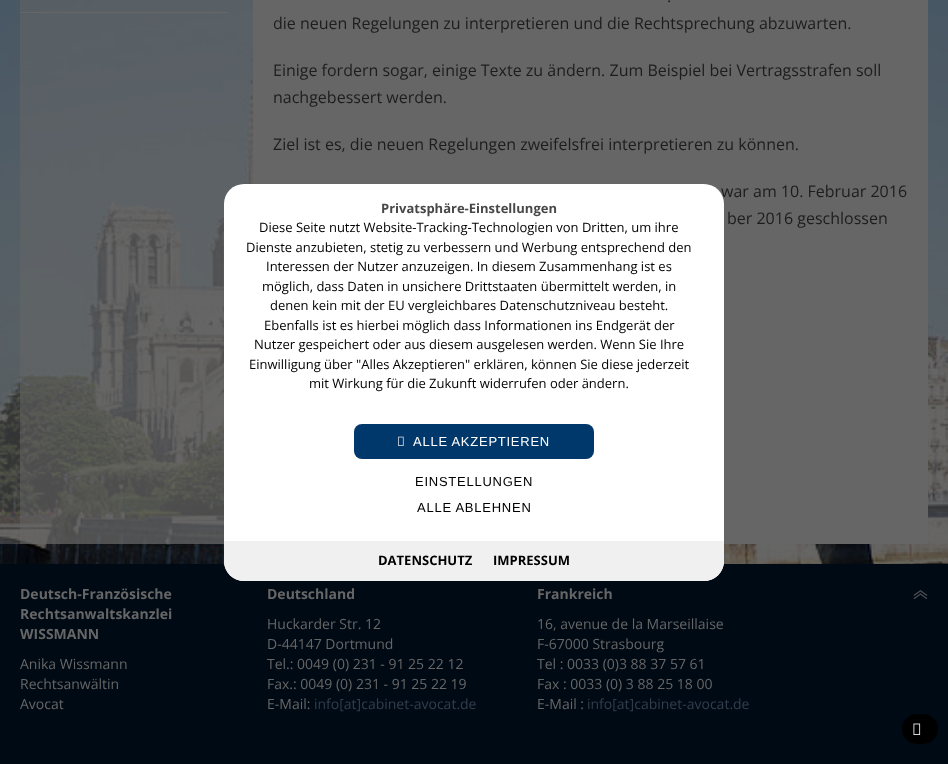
<?xml version="1.0" encoding="UTF-8"?>
<svg xmlns="http://www.w3.org/2000/svg" xmlns:xlink="http://www.w3.org/1999/xlink" width="948" height="764">
  <rect width="100%" height="100%" fill="#000a14" />
  <image x="0" y="0" width="948" height="564" xlink:href="image1.png" />
  <rect x="20" y="12" width="208" height="1" fill="#666666" />
  <rect x="253" width="675" height="544" fill="#666666" />
  <image x="913" y="590" width="15" height="9" xlink:href="image2.png" />
  <rect x="902" y="714" width="36" height="30" rx="15" fill="#000000" />
  <image x="913" y="723" width="8" height="12" xlink:href="image4.png" />
  <text x="667" y="2" style="font-family: Open Sans; font-size: 16px; fill: #1d1d1d">.</text>
  <text x="273" y="29" style="font-family: Open Sans; font-size: 16px; fill: #1d1d1d">die neuen Regelungen zu interpretieren und die Rechtsprechung abzuwarten.</text>
  <text x="273" y="76" style="font-family: Open Sans; font-size: 16px; fill: #1d1d1d">Einige fordern sogar, einige Texte zu ändern. Zum Beispiel bei Vertragsstrafen soll</text>
  <text x="273" y="103" style="font-family: Open Sans; font-size: 16px; fill: #1d1d1d">nachgebessert werden.</text>
  <text x="273" y="150" style="font-family: Open Sans; font-size: 16px; fill: #1d1d1d">Ziel ist es, die neuen Regelungen zweifelsfrei interpretieren zu können.</text>
  <text x="721" y="197" style="font-family: Open Sans; font-size: 16px; fill: #1d1d1d">war am 10. Februar 2016</text>
  <text x="727" y="224" style="font-family: Open Sans; font-size: 16px; fill: #1d1d1d">ber 2016 geschlossen</text>
  <text x="20" y="599" style="font-family: Open Sans; font-size: 14px; font-weight: bold; fill: #666666">Deutsch-Französische</text>
  <text x="20" y="619" style="font-family: Open Sans; font-size: 14px; font-weight: bold; fill: #666666">Rechtsanwaltskanzlei</text>
  <text x="20" y="639" style="font-family: Open Sans; font-size: 14px; font-weight: bold; fill: #666666">WISSMANN</text>
  <text x="20" y="669" style="font-family: Open Sans; font-size: 14px; fill: #666666">Anika Wissmann</text>
  <text x="20" y="689" style="font-family: Open Sans; font-size: 14px; fill: #666666">Rechtsanwältin</text>
  <text x="20" y="709" style="font-family: Open Sans; font-size: 14px; fill: #666666">Avocat</text>
  <text x="267" y="599" style="font-family: Open Sans; font-size: 14px; font-weight: bold; fill: #666666">Deutschland</text>
  <text x="267" y="629" style="font-family: Open Sans; font-size: 14px; fill: #666666">Huckarder Str. 12</text>
  <text x="267" y="649" style="font-family: Open Sans; font-size: 14px; fill: #666666">D-44147 Dortmund</text>
  <text x="267" y="669" style="font-family: Open Sans; font-size: 14px; fill: #666666">Tel.: 0049 (0) 231 - 91 25 22 12</text>
  <text x="267" y="689" style="font-family: Open Sans; font-size: 14px; fill: #666666">Fax.: 0049 (0) 231 - 91 25 22 19</text>
  <text x="267" y="709" style="font-family: Open Sans; font-size: 14px; fill: #666666">E-Mail:</text>
  <text x="314" y="709" style="font-family: Open Sans; font-size: 14px; fill: #313e4e">info[at]cabinet-avocat.de</text>
  <text x="537" y="599" style="font-family: Open Sans; font-size: 14px; font-weight: bold; fill: #666666">Frankreich</text>
  <text x="537" y="629" style="font-family: Open Sans; font-size: 14px; fill: #666666">16, avenue de la Marseillaise</text>
  <text x="537" y="649" style="font-family: Open Sans; font-size: 14px; fill: #666666">F-67000 Strasbourg</text>
  <text x="537" y="669" style="font-family: Open Sans; font-size: 14px; fill: #666666">Tel : 0033 (0)3 88 37 57 61</text>
  <text x="537" y="689" style="font-family: Open Sans; font-size: 14px; fill: #666666">Fax : 0033 (0) 3 88 25 18 00</text>
  <text x="537" y="709" style="font-family: Open Sans; font-size: 14px; fill: #666666">E-Mail :</text>
  <text x="587" y="709" style="font-family: Open Sans; font-size: 14px; fill: #313e4e">info[at]cabinet-avocat.de</text>
  <rect x="224" y="184" width="500" height="397" rx="20" fill="#ffffff" />
  <text x="381" y="213" style="font-family: Open Sans; font-size: 13px; font-weight: bold; fill: #484848">Privatsphäre-Einstellungen</text>
  <text x="259" y="232" style="font-family: Open Sans; font-size: 13px; fill: #000000">Diese Seite nutzt Website-Tracking-Technologien von Dritten, um ihre</text>
  <text x="246" y="252" style="font-family: Open Sans; font-size: 13px; fill: #000000">Dienste anzubieten, stetig zu verbessern und Werbung entsprechend den</text>
  <text x="266" y="271" style="font-family: Open Sans; font-size: 13px; fill: #000000">Interessen der Nutzer anzuzeigen. In diesem Zusammenhang ist es</text>
  <text x="262" y="291" style="font-family: Open Sans; font-size: 13px; fill: #000000">möglich, dass Daten in unsichere Drittstaaten übermittelt werden, in</text>
  <text x="270" y="310" style="font-family: Open Sans; font-size: 13px; fill: #000000">denen kein mit der EU vergleichbares Datenschutzniveau besteht.</text>
  <text x="264" y="330" style="font-family: Open Sans; font-size: 13px; fill: #000000">Ebenfalls ist es hierbei möglich dass Informationen ins Endgerät der</text>
  <text x="254" y="349" style="font-family: Open Sans; font-size: 13px; fill: #000000">Nutzer gespeichert oder aus diesem ausgelesen werden. Wenn Sie Ihre</text>
  <text x="249" y="369" style="font-family: Open Sans; font-size: 13px; fill: #000000">Einwilligung über "Alles Akzeptieren" erklären, können Sie diese jederzeit</text>
  <text x="309" y="388" style="font-family: Open Sans; font-size: 13px; fill: #000000">mit Wirkung für die Zukunft widerrufen oder ändern.</text>
  <rect x="354" y="424" width="240" height="35" rx="8" fill="#00386c" />
  <image x="398" y="436" width="6" height="10" xlink:href="image3.png" />
  <text x="413" y="446" style="font-family: Liberation Sans; font-size: 13px; letter-spacing: 0.75px; fill: #ffffff">ALLE AKZEPTIEREN</text>
  <text x="415" y="486" style="font-family: Liberation Sans; font-size: 13px; letter-spacing: 0.75px; fill: #000000">EINSTELLUNGEN</text>
  <text x="417" y="512" style="font-family: Liberation Sans; font-size: 13px; letter-spacing: 0.75px; fill: #000000">ALLE ABLEHNEN</text>
  <path d="M 224 541 h 500 v 20 c 0 11 -9 20 -20 20 h -460 c -11 0 -20 -9 -20 -20 z" fill="#f0f0f0" />
  <text x="378" y="565" style="font-family: Open Sans; font-size: 13px; font-weight: bold; fill: #000000">DATENSCHUTZ</text>
  <text x="493" y="565" style="font-family: Open Sans; font-size: 13px; font-weight: bold; fill: #000000">IMPRESSUM</text>
</svg>
